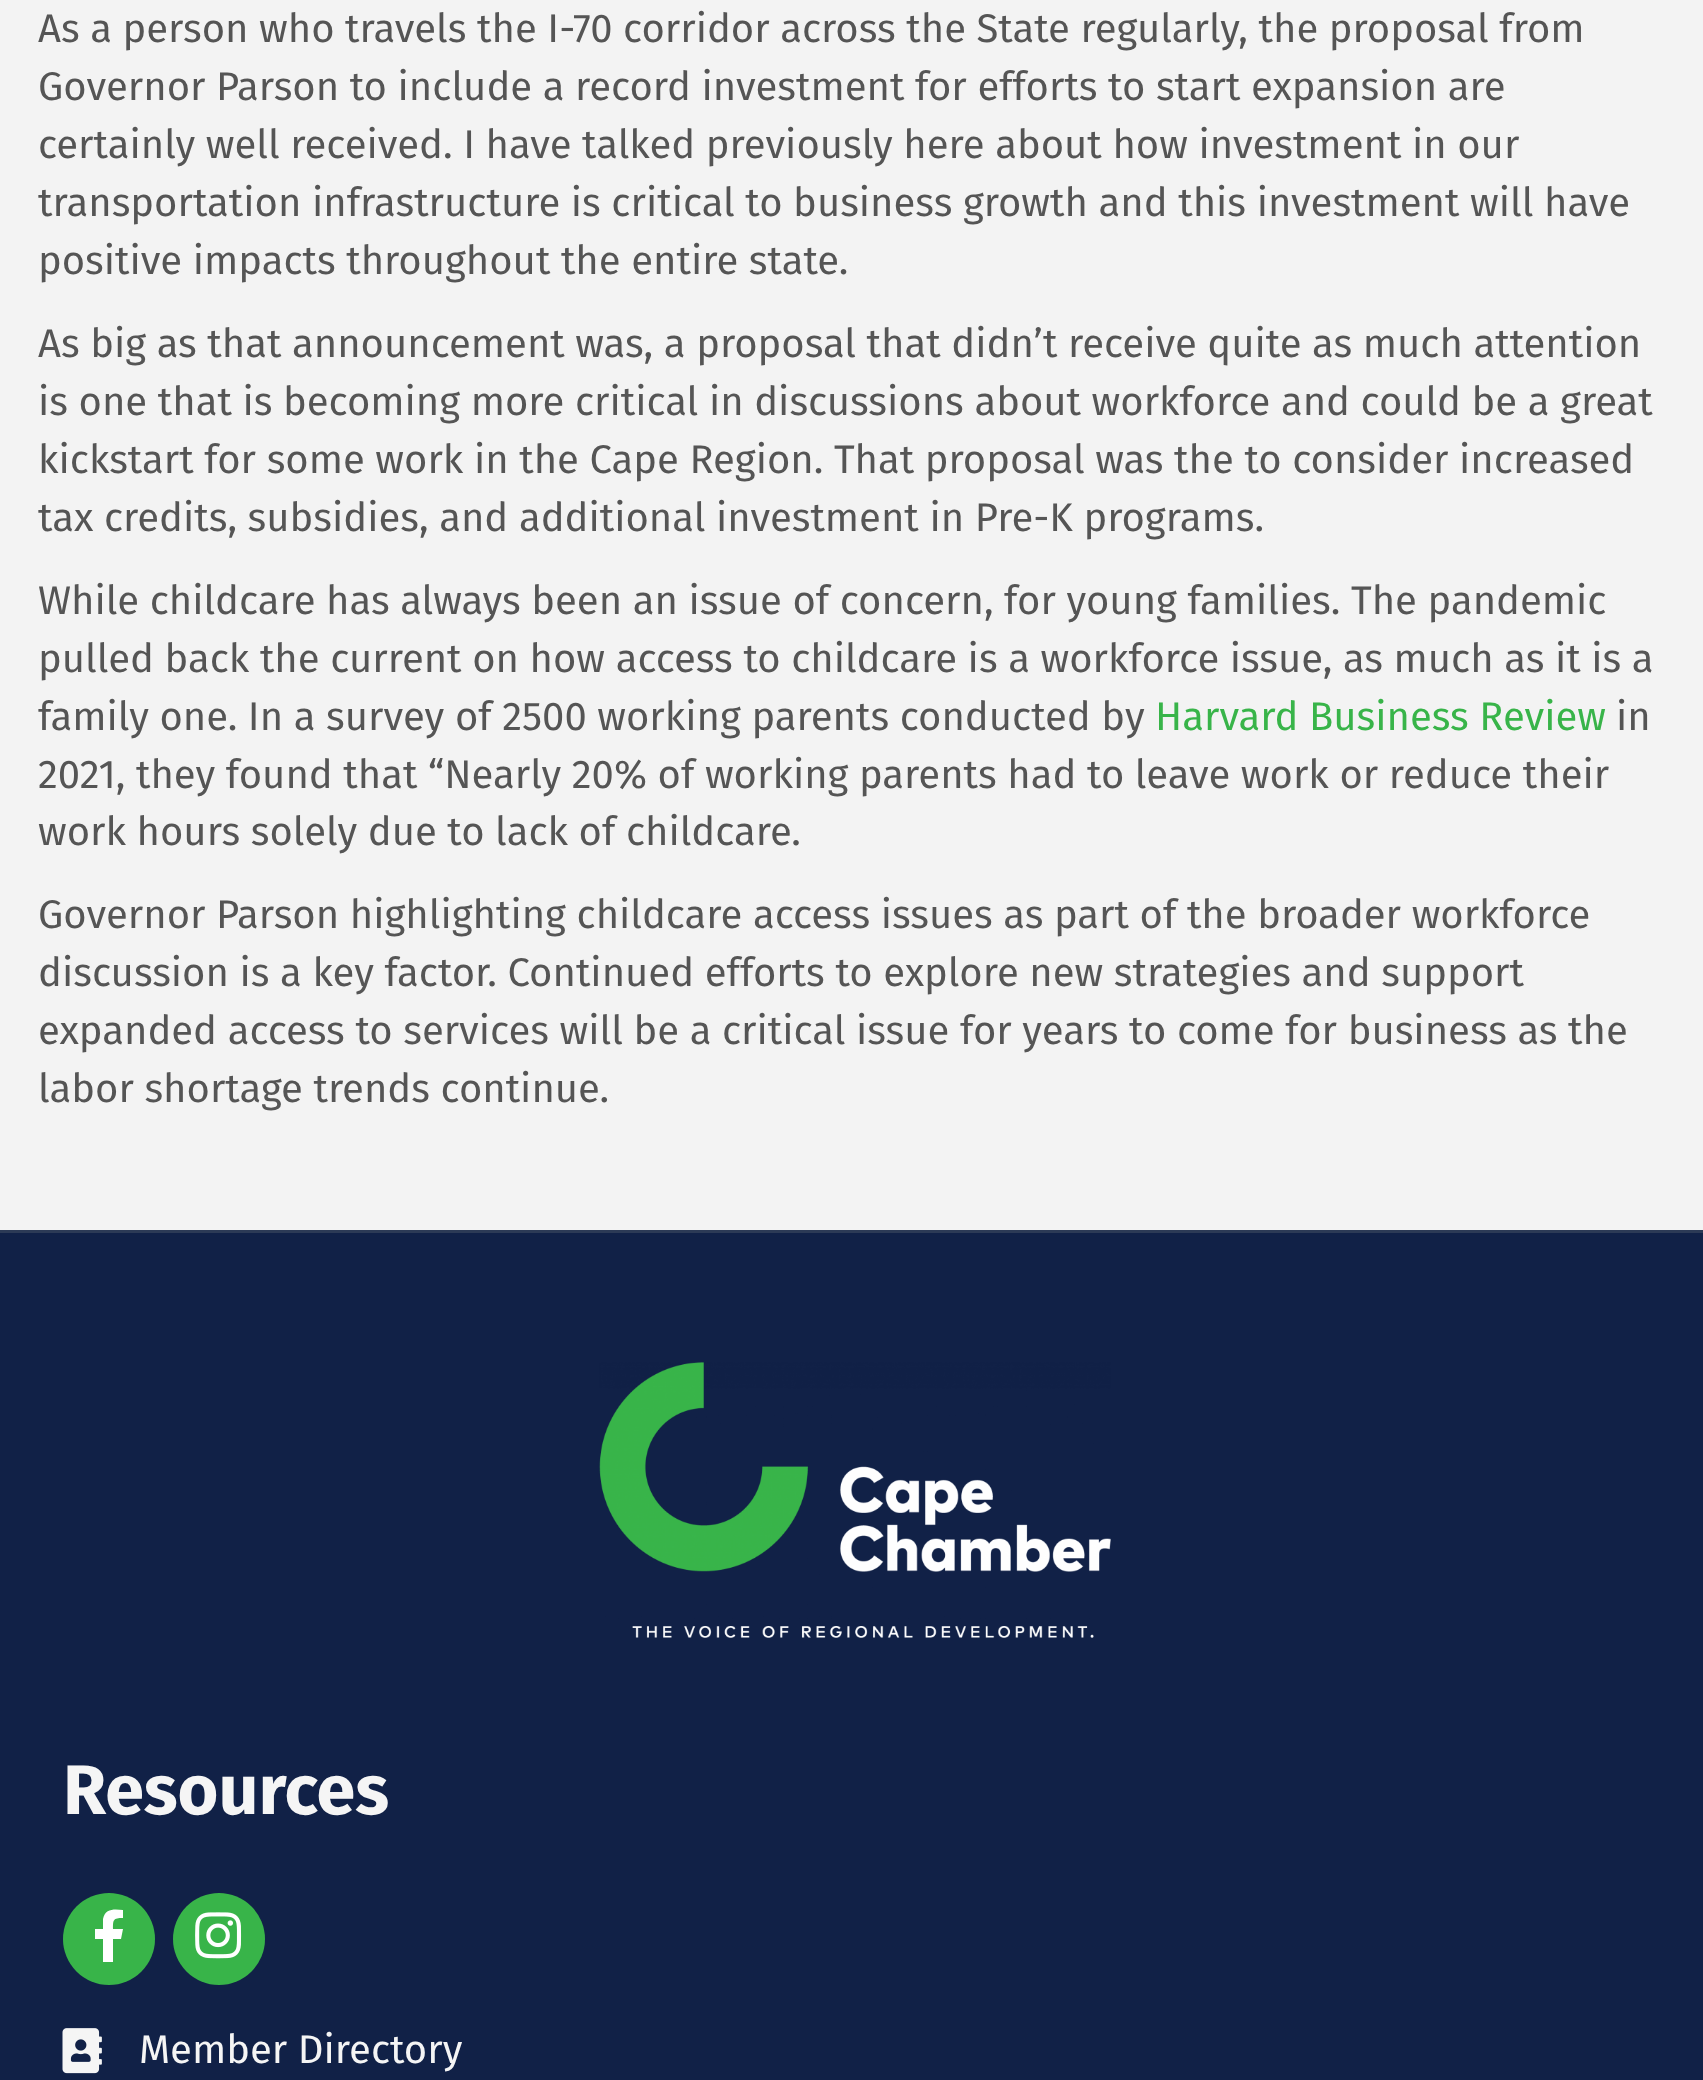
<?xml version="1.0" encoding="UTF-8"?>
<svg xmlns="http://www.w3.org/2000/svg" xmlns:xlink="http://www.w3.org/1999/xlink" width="1703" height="2080">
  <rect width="100%" height="100%" fill="#f3f3f3" />
  <rect y="1233" width="1703" height="847" fill="#112147" />
  <rect y="1230" width="1703" height="3" fill="#2c3a56" />
  <image x="599" y="1362" width="512" height="276" xlink:href="image1.png" />
  <circle cx="109" cy="1939" r="46" fill="#38b449" />
  <path d="M 121 1939 h -8 v 23 h -10 v -23 h -8 v -10 h 8 v -10 c 2 -11 12 -10 20 -9 v 8 c -10 0 -10 2 -10 11 h 10 z" fill="#ffffff" />
  <circle cx="219" cy="1939" r="46" fill="#38b449" />
  <image x="195" y="1912" width="47" height="47" xlink:href="image2.png" />
  <image x="62" y="2028" width="40" height="46" xlink:href="image3.png" />
  <text x="38" y="42" style="font-family: Fira Sans; font-size: 40px; fill: #555555">As a person who travels the I-70 corridor across the State regularly, the proposal from</text>
  <text x="38" y="100" style="font-family: Fira Sans; font-size: 40px; fill: #555555">Governor Parson to include a record investment for efforts to start expansion are</text>
  <text x="38" y="158" style="font-family: Fira Sans; font-size: 40px; fill: #555555">certainly well received. I have talked previously here about how investment in our</text>
  <text x="38" y="216" style="font-family: Fira Sans; font-size: 40px; fill: #555555">transportation infrastructure is critical to business growth and this investment will have</text>
  <text x="38" y="274" style="font-family: Fira Sans; font-size: 40px; fill: #555555">positive impacts throughout the entire state.</text>
  <text x="38" y="357" style="font-family: Fira Sans; font-size: 40px; fill: #555555">As big as that announcement was, a proposal that didn’t receive quite as much attention</text>
  <text x="38" y="415" style="font-family: Fira Sans; font-size: 40px; fill: #555555">is one that is becoming more critical in discussions about workforce and could be a great</text>
  <text x="38" y="473" style="font-family: Fira Sans; font-size: 40px; fill: #555555">kickstart for some work in the Cape Region. That proposal was the to consider increased</text>
  <text x="38" y="531" style="font-family: Fira Sans; font-size: 40px; fill: #555555">tax credits, subsidies, and additional investment in Pre-K programs.</text>
  <text x="38" y="614" style="font-family: Fira Sans; font-size: 40px; fill: #555555">While childcare has always been an issue of concern, for young families. The pandemic</text>
  <text x="38" y="672" style="font-family: Fira Sans; font-size: 40px; fill: #555555">pulled back the current on how access to childcare is a workforce issue, as much as it is a</text>
  <text x="38" y="730" style="font-family: Fira Sans; font-size: 40px; fill: #555555">family one. In a survey of 2500 working parents conducted by</text>
  <text x="1155" y="730" style="font-family: Fira Sans; font-size: 40px; fill: #38b449">Harvard Business Review</text>
  <text x="1616" y="730" style="font-family: Fira Sans; font-size: 40px; fill: #555555">in</text>
  <text x="38" y="788" style="font-family: Fira Sans; font-size: 40px; fill: #555555">2021, they found that “Nearly 20% of working parents had to leave work or reduce their</text>
  <text x="38" y="845" style="font-family: Fira Sans; font-size: 40px; fill: #555555">work hours solely due to lack of childcare.</text>
  <text x="38" y="928" style="font-family: Fira Sans; font-size: 40px; fill: #555555">Governor Parson highlighting childcare access issues as part of the broader workforce</text>
  <text x="38" y="986" style="font-family: Fira Sans; font-size: 40px; fill: #555555">discussion is a key factor. Continued efforts to explore new strategies and support</text>
  <text x="38" y="1044" style="font-family: Fira Sans; font-size: 40px; fill: #555555">expanded access to services will be a critical issue for years to come for business as the</text>
  <text x="38" y="1102" style="font-family: Fira Sans; font-size: 40px; fill: #555555">labor shortage trends continue.</text>
  <text x="63" y="1814" style="font-family: Fira Sans; font-size: 70px; font-weight: bold; fill: #f5f5f5">Resources</text>
  <text x="139" y="2063" style="font-family: Fira Sans; font-size: 40px; fill: #f5f5f5">Member Directory</text>
</svg>
